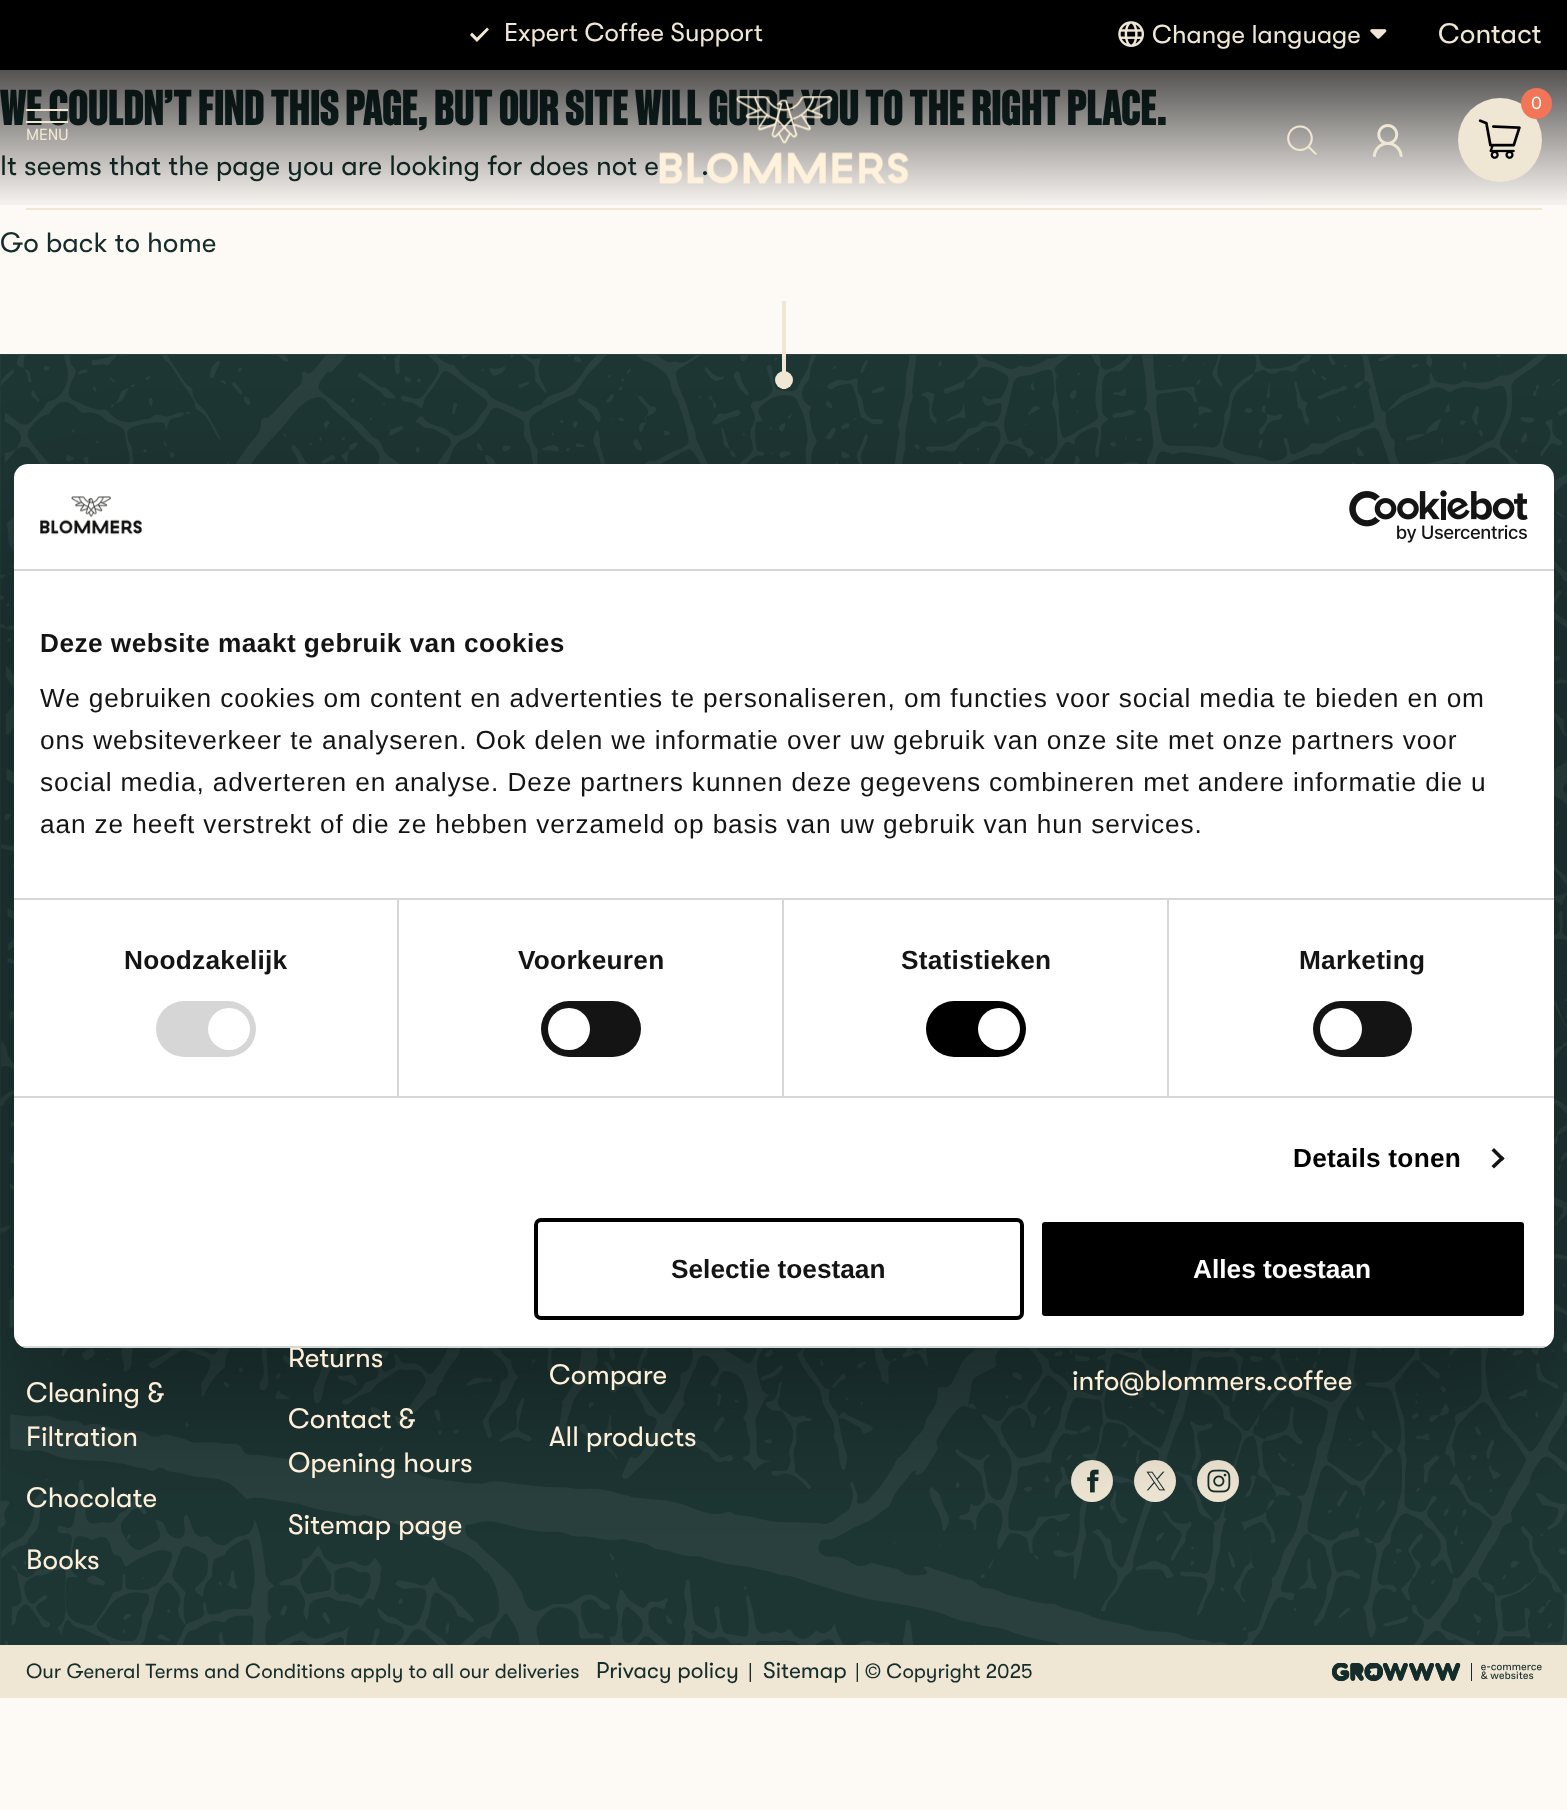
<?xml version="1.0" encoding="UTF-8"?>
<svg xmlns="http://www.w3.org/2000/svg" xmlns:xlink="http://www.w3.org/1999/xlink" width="1567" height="1810">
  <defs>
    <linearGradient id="g1" gradientUnits="userSpaceOnUse" x1="784" y1="210" x2="784" y2="0"><stop offset="0" stop-color="#000000" stop-opacity="0" /><stop offset="1" stop-color="#000000" /></linearGradient>
    <clipPath id="clip1"><rect x="14" y="464" width="1540" height="884" rx="14" /></clipPath>
  </defs>
  <rect width="100%" height="100%" fill="#fdf9f5" />
  <rect width="1567" height="70" fill="#000000" />
  <path d="M 477 42 l -7 -7 l 2 -2.5 l 5 5 l 10 -10 l 2 2 z" fill="#f0e6d4" />
  <image x="1118" y="21" width="26" height="26" xlink:href="image1.png" />
  <image x="1370" y="29" width="17" height="10" xlink:href="image2.png" />
  <rect x="26" y="208" width="1516" height="2" fill="#f0e6d4" />
  <rect y="354" width="1567" height="1291" fill="#29403e" />
  <image x="0" y="355" width="1567" height="1290" xlink:href="image9.png" />
  <rect x="782" y="301" width="4" height="88" fill="#f0e6d4" />
  <circle cx="784" cy="380" r="9" fill="#f0e6d4" />
  <circle cx="1092" cy="1481" r="21" fill="#f0e6d4" />
  <image x="1087" y="1469" width="12" height="24" xlink:href="image10.png" />
  <circle cx="1155" cy="1481" r="21" fill="#f0e6d4" />
  <image x="1146" y="1471" width="20" height="20" xlink:href="image11.png" />
  <circle cx="1218" cy="1481" r="21" fill="#f0e6d4" />
  <image x="1207" y="1469" width="24" height="24" xlink:href="image12.png" />
  <rect x="14" y="520" width="1540" height="884" rx="14" fill="#000000" fill-opacity="0.3" filter="blur(59.5px)" />
  <rect y="1645" width="1567" height="53" fill="#f0e6d4" />
  <image x="1332" y="1663" width="210" height="19" xlink:href="image13.png" />
  <text x="504" y="41" style="font-family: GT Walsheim; font-size: 25.75px; fill: #f0e6d4">Expert Coffee Support</text>
  <text x="1152" y="43" style="font-family: GT Walsheim; font-size: 25.75px; fill: #f0e6d4">Change language</text>
  <text x="1438" y="43" style="font-family: GT Walsheim; font-size: 28px; fill: #f0e6d4">Contact</text>
  <text x="0" y="125" style="font-family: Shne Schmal; font-size: 49px; font-weight: 800; fill: #142d2b">WE COULDN’T FIND THIS PAGE, BUT OUR SITE WILL GUIDE YOU TO THE RIGHT PLACE.</text>
  <text x="0" y="175" style="font-family: GT Walsheim; font-size: 28px; fill: #142d2b">It seems that the page you are looking for does not e</text>
  <text x="701" y="175" style="font-family: GT Walsheim; font-size: 28px; fill: #142d2b">.</text>
  <rect y="70" width="1567" height="135" fill="url(#g1)" />
  <circle cx="1500" cy="140" r="42" fill="#f0e6d4" />
  <circle cx="1536.5" cy="103.5" r="15.5" fill="#f17556" />
  <text x="1531" y="109" style="font-family: GT Walsheim; font-size: 18px; fill: #ffffff">0</text>
  <image x="1478" y="119" width="43" height="40" xlink:href="image4.png" />
  <image x="1287" y="125" width="30" height="30" xlink:href="image5.png" />
  <image x="659" y="96" width="250" height="88" xlink:href="image3.png" />
  <text x="26" y="140" style="font-family: GT Walsheim; font-size: 16px; fill: #f0e6d4">MENU</text>
  <rect x="26" y="121" width="42" height="2" fill="#f0e6d4" />
  <rect x="26" y="109" width="42" height="2" fill="#f0e6d4" />
  <image x="1372" y="124" width="31" height="33" xlink:href="image6.png" />
  <text x="0" y="252" style="font-family: GT Walsheim; font-size: 28px; fill: #142d2b">Go back to home</text>
  <text x="26" y="1402" style="font-family: GT Walsheim; font-size: 28px; fill: #fff0da">Cleaning &amp;</text>
  <text x="26" y="1446" style="font-family: GT Walsheim; font-size: 28px; fill: #fff0da">Filtration</text>
  <text x="26" y="1507" style="font-family: GT Walsheim; font-size: 28px; fill: #fff0da">Chocolate</text>
  <text x="26" y="1569" style="font-family: GT Walsheim; font-size: 28px; fill: #fff0da">Books</text>
  <text x="288" y="1367" style="font-family: GT Walsheim; font-size: 28px; fill: #fff0da">Returns</text>
  <rect x="14" y="464" width="1540" height="884" rx="14" fill="#ffffff" />
  <rect x="1040" y="1220" width="486" height="98" rx="5" fill="#000000" stroke="#ffffff" stroke-width="4" />
  <text x="1193" y="1278" style="font-family: Liberation Sans; font-size: 26.25px; font-weight: bold; fill: #ffffff">Alles toestaan</text>
  <rect x="536" y="1220" width="486" height="98" rx="5" fill="none" stroke="#000000" stroke-width="4" />
  <text x="671" y="1278" style="font-family: Liberation Sans; font-size: 26.25px; font-weight: bold; fill: #141414">Selectie toestaan</text>
  <g clip-path="url(#clip1)">
    <rect x="14" y="1346" width="1540" height="2" fill="#d6d6d6" />
  </g>
  <path d="M 1494 1148 l 10.5 10.5 l -2.5 2.5 l -10.5 -10.5 z" fill="#141414" />
  <path d="M 1502 1156 l 2.5 2.5 l -10.5 10 l -2.5 -2.5 z" fill="#141414" />
  <rect x="1313" y="1001" width="99" height="56" rx="28" fill="#141414" />
  <circle cx="1341" cy="1029" r="21" fill="#ffffff" />
  <rect x="926" y="1001" width="100" height="56" rx="28" fill="#000000" />
  <circle cx="999" cy="1029" r="21" fill="#ffffff" />
  <rect x="541" y="1001" width="100" height="56" rx="28" fill="#141414" />
  <circle cx="569" cy="1029" r="21" fill="#ffffff" />
  <rect x="156" y="1001" width="100" height="56" rx="28" fill="#d6d6d6" />
  <circle cx="229" cy="1029" r="21" fill="#ffffff" />
  <text x="40" y="833" style="font-family: Liberation Sans; font-size: 26.25px; letter-spacing: 0.88px; fill: #141414">aan ze heeft verstrekt of die ze hebben verzameld op basis van uw gebruik van hun services.</text>
  <text x="40" y="791" style="font-family: Liberation Sans; font-size: 26.25px; letter-spacing: 0.88px; fill: #141414">social media, adverteren en analyse. Deze partners kunnen deze gegevens combineren met andere informatie die u</text>
  <text x="40" y="749" style="font-family: Liberation Sans; font-size: 26.25px; letter-spacing: 0.88px; fill: #141414">ons websiteverkeer te analyseren. Ook delen we informatie over uw gebruik van onze site met onze partners voor</text>
  <text x="40" y="707" style="font-family: Liberation Sans; font-size: 26.25px; letter-spacing: 0.88px; fill: #141414">We gebruiken cookies om content en advertenties te personaliseren, om functies voor social media te bieden en om</text>
  <text x="40" y="652" style="font-family: Liberation Sans; font-size: 26.25px; font-weight: bold; letter-spacing: 0.45px; fill: #141414">Deze website maakt gebruik van cookies</text>
  <rect x="14" y="898" width="1540" height="2" fill="#d6d6d6" />
  <text x="1293" y="1167" style="font-family: Liberation Sans; font-size: 26.25px; font-weight: bold; letter-spacing: 0.25px; fill: #000000">Details tonen</text>
  <text x="1299" y="969" style="font-family: Liberation Sans; font-size: 26.25px; font-weight: bold; letter-spacing: 0.25px; fill: #141414">Marketing</text>
  <text x="901" y="969" style="font-family: Liberation Sans; font-size: 26.25px; font-weight: bold; letter-spacing: 0.25px; fill: #141414">Statistieken</text>
  <rect x="1167" y="900" width="2" height="196" fill="#d6d6d6" />
  <text x="518" y="969" style="font-family: Liberation Sans; font-size: 26.25px; font-weight: bold; letter-spacing: 0.25px; fill: #141414">Voorkeuren</text>
  <rect x="782" y="900" width="2" height="196" fill="#d6d6d6" />
  <text x="124" y="969" style="font-family: Liberation Sans; font-size: 26.25px; font-weight: bold; letter-spacing: 0.25px; fill: #141414">Noodzakelijk</text>
  <rect x="397" y="900" width="2" height="196" fill="#d6d6d6" />
  <rect x="14" y="1096" width="1540" height="2" fill="#d6d6d6" />
  <image x="1349" y="490" width="179" height="53" xlink:href="image8.png" />
  <image x="40" y="496" width="102" height="39" xlink:href="image7.png" />
  <rect x="14" y="569" width="1540" height="2" fill="#d6d6d6" />
  <text x="288" y="1428" style="font-family: GT Walsheim; font-size: 28px; fill: #fff0da">Contact &amp;</text>
  <text x="288" y="1472" style="font-family: GT Walsheim; font-size: 28px; fill: #fff0da">Opening hours</text>
  <text x="288" y="1534" style="font-family: GT Walsheim; font-size: 28px; fill: #fff0da">Sitemap page</text>
  <text x="549" y="1384" style="font-family: GT Walsheim; font-size: 28px; fill: #fff0da">Compare</text>
  <text x="549" y="1446" style="font-family: GT Walsheim; font-size: 28px; fill: #fff0da">All products</text>
  <text x="1072" y="1390" style="font-family: GT Walsheim; font-size: 28px; fill: #fff0da">info@blommers.coffee</text>
  <text x="26" y="1678" style="font-family: GT Walsheim; font-size: 20.5px; fill: #142d2b">Our General Terms and Conditions apply to all our deliveries</text>
  <text x="596" y="1678" style="font-family: GT Walsheim; font-size: 22.75px; fill: #142d2b">Privacy policy</text>
  <text x="748" y="1678" style="font-family: GT Walsheim; font-size: 20.5px; fill: #142d2b">|</text>
  <text x="763" y="1678" style="font-family: GT Walsheim; font-size: 22.75px; fill: #142d2b">Sitemap</text>
  <text x="855" y="1678" style="font-family: GT Walsheim; font-size: 20.5px; fill: #142d2b">| © Copyright 2025</text>
</svg>
